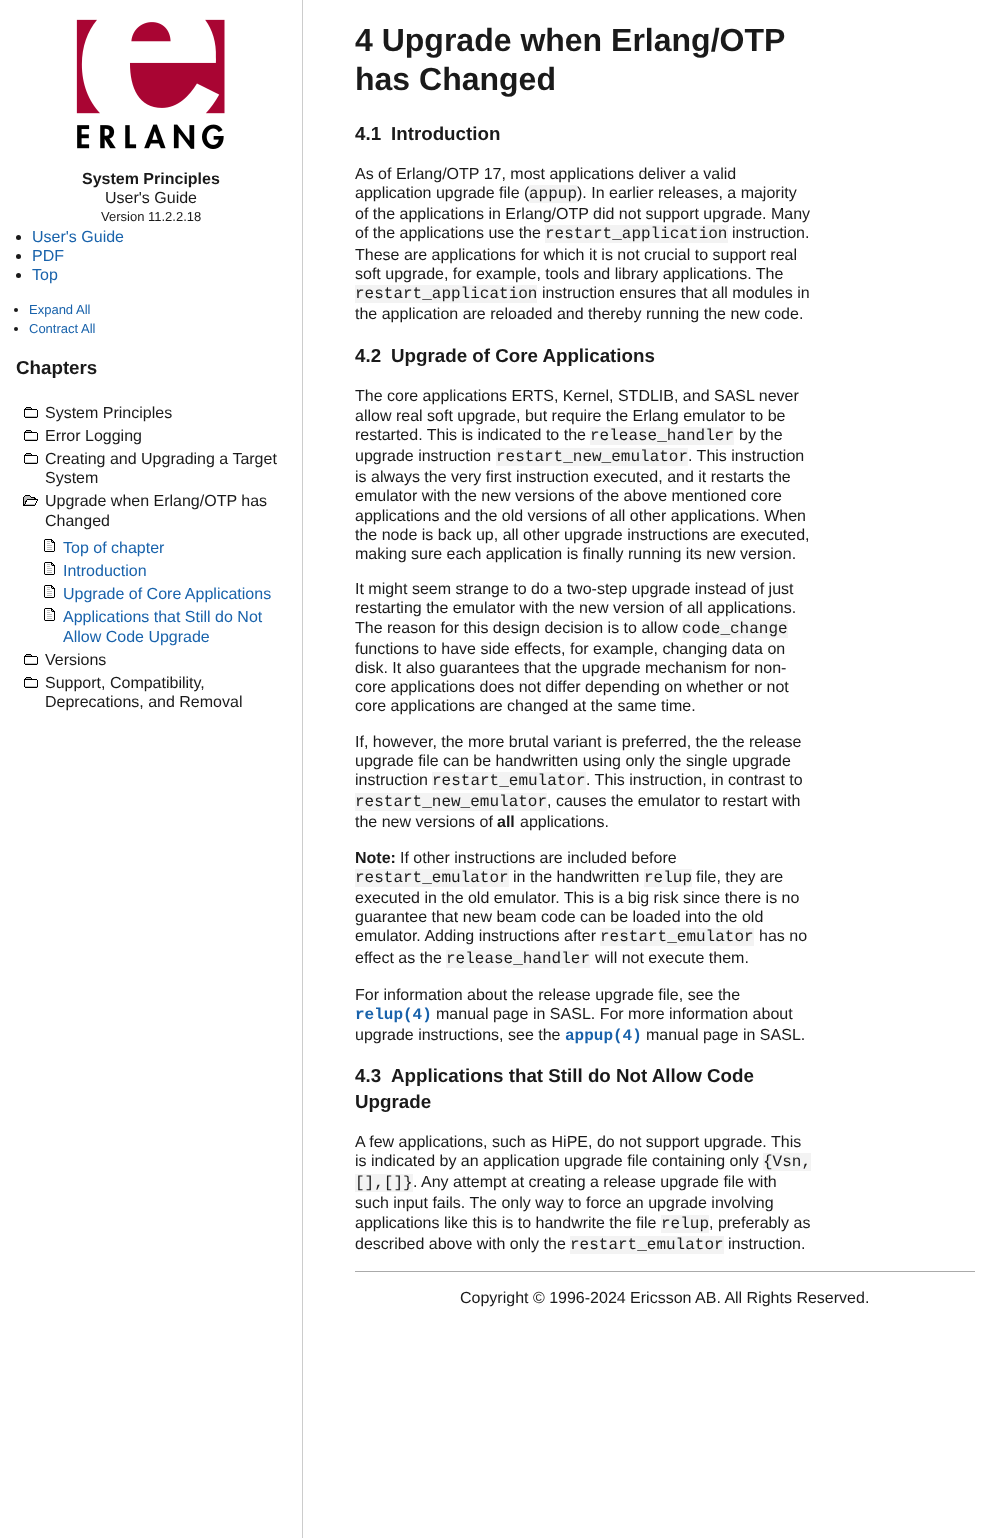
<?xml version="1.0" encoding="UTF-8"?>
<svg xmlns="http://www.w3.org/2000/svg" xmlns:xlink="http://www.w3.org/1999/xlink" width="990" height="1538">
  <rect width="100%" height="100%" fill="#ffffff" />
  <rect x="302" width="1" height="1538" fill="#cccccc" />
  <image x="76" y="19" width="149" height="130" xlink:href="image1.png" />
  <circle cx="18.5" cy="237.5" r="2.5" fill="#1a1a1a" />
  <circle cx="18.5" cy="256.5" r="2.5" fill="#1a1a1a" />
  <circle cx="18.5" cy="275.5" r="2.5" fill="#1a1a1a" />
  <circle cx="16" cy="310" r="2" fill="#1a1a1a" />
  <circle cx="16" cy="329" r="2" fill="#1a1a1a" />
  <image x="24" y="407" width="14" height="11" xlink:href="image2.png" />
  <image x="24" y="430" width="14" height="11" xlink:href="image2.png" />
  <image x="24" y="453" width="14" height="11" xlink:href="image2.png" />
  <image x="23" y="495" width="15" height="11" xlink:href="image3.png" />
  <image x="44" y="539" width="11" height="13" xlink:href="image4.png" />
  <image x="44" y="562" width="11" height="13" xlink:href="image4.png" />
  <image x="44" y="585" width="11" height="13" xlink:href="image4.png" />
  <image x="44" y="608" width="11" height="13" xlink:href="image4.png" />
  <image x="24" y="654" width="14" height="11" xlink:href="image2.png" />
  <image x="24" y="677" width="14" height="11" xlink:href="image2.png" />
  <rect x="545" y="225" width="183" height="18" fill="#f3f3f3" />
  <rect x="355" y="285" width="182" height="18" fill="#f3f3f3" />
  <rect x="590" y="427" width="144" height="18" fill="#f3f3f3" />
  <rect x="496" y="448" width="192" height="18" fill="#f3f3f3" />
  <rect x="682" y="620" width="106" height="18" fill="#f3f3f3" />
  <rect x="432" y="772" width="154" height="18" fill="#f3f3f3" />
  <rect x="355" y="793" width="192" height="18" fill="#f3f3f3" />
  <rect x="355" y="869" width="154" height="18" fill="#f3f3f3" />
  <rect x="644" y="869" width="48" height="18" fill="#f3f3f3" />
  <rect x="600" y="928" width="154" height="18" fill="#f3f3f3" />
  <rect x="446" y="950" width="144" height="18" fill="#f3f3f3" />
  <rect x="763" y="1153" width="48" height="18" fill="#f3f3f3" />
  <rect x="355" y="1174" width="58" height="18" fill="#f3f3f3" />
  <rect x="661" y="1215" width="48" height="18" fill="#f3f3f3" />
  <rect x="570" y="1236" width="154" height="18" fill="#f3f3f3" />
  <rect x="355" y="1271" width="620" height="1" fill="#aaaaaa" />
  <text x="82" y="184" style="font-family: Liberation Sans; font-size: 16px; font-weight: bold; fill: #1a1a1a">System Principles</text>
  <text x="105" y="203" style="font-family: Liberation Sans; font-size: 16px; fill: #1a1a1a">User's Guide</text>
  <text x="101" y="221" style="font-family: Liberation Sans; font-size: 13px; fill: #1a1a1a">Version 11.2.2.18</text>
  <text x="32" y="242" style="font-family: Liberation Sans; font-size: 16px; fill: #1862ab">User's Guide</text>
  <text x="32" y="261" style="font-family: Liberation Sans; font-size: 16px; fill: #1862ab">PDF</text>
  <text x="32" y="280" style="font-family: Liberation Sans; font-size: 16px; fill: #1862ab">Top</text>
  <text x="29" y="314" style="font-family: Liberation Sans; font-size: 13px; fill: #1862ab">Expand All</text>
  <text x="29" y="333" style="font-family: Liberation Sans; font-size: 13px; fill: #1862ab">Contract All</text>
  <text x="16" y="374" style="font-family: Liberation Sans; font-size: 18.75px; font-weight: bold; fill: #1a1a1a">Chapters</text>
  <text x="45" y="418" style="font-family: Liberation Sans; font-size: 16px; fill: #1a1a1a">System Principles</text>
  <text x="45" y="441" style="font-family: Liberation Sans; font-size: 16px; fill: #1a1a1a">Error Logging</text>
  <text x="45" y="464" style="font-family: Liberation Sans; font-size: 16px; fill: #1a1a1a">Creating and Upgrading a Target</text>
  <text x="45" y="483" style="font-family: Liberation Sans; font-size: 16px; fill: #1a1a1a">System</text>
  <text x="45" y="506" style="font-family: Liberation Sans; font-size: 16px; fill: #1a1a1a">Upgrade when Erlang/OTP has</text>
  <text x="45" y="526" style="font-family: Liberation Sans; font-size: 16px; fill: #1a1a1a">Changed</text>
  <text x="63" y="553" style="font-family: Liberation Sans; font-size: 16px; fill: #1862ab">Top of chapter</text>
  <text x="63" y="576" style="font-family: Liberation Sans; font-size: 16px; fill: #1862ab">Introduction</text>
  <text x="63" y="599" style="font-family: Liberation Sans; font-size: 16px; fill: #1862ab">Upgrade of Core Applications</text>
  <text x="63" y="622" style="font-family: Liberation Sans; font-size: 16px; fill: #1862ab">Applications that Still do Not</text>
  <text x="63" y="642" style="font-family: Liberation Sans; font-size: 16px; fill: #1862ab">Allow Code Upgrade</text>
  <text x="45" y="665" style="font-family: Liberation Sans; font-size: 16px; fill: #1a1a1a">Versions</text>
  <text x="45" y="688" style="font-family: Liberation Sans; font-size: 16px; fill: #1a1a1a">Support, Compatibility,</text>
  <text x="45" y="707" style="font-family: Liberation Sans; font-size: 16px; fill: #1a1a1a">Deprecations, and Removal</text>
  <text x="355" y="51" style="font-family: Liberation Sans; font-size: 32px; font-weight: bold; fill: #1a1a1a">4 Upgrade when Erlang/OTP</text>
  <text x="355" y="90" style="font-family: Liberation Sans; font-size: 32px; font-weight: bold; fill: #1a1a1a">has Changed</text>
  <text x="355" y="140" style="font-family: Liberation Sans; font-size: 18.75px; font-weight: bold; fill: #1a1a1a">4.1</text>
  <text x="391" y="140" style="font-family: Liberation Sans; font-size: 18.75px; font-weight: bold; fill: #1a1a1a">Introduction</text>
  <text x="355" y="179" style="font-family: Liberation Sans; font-size: 16px; fill: #1a1a1a">As of Erlang/OTP 17, most applications deliver a valid</text>
  <text x="355" y="198" style="font-family: Liberation Sans; font-size: 16px; fill: #1a1a1a">application upgrade file (</text>
  <rect x="529" y="185" width="48" height="18" fill="#f3f3f3" />
  <text x="529" y="198" style="font-family: Liberation Mono; font-size: 16px; fill: #1a1a1a">appup</text>
  <text x="577" y="198" style="font-family: Liberation Sans; font-size: 16px; fill: #1a1a1a">). In earlier releases, a majority</text>
  <text x="355" y="219" style="font-family: Liberation Sans; font-size: 16px; fill: #1a1a1a">of the applications in Erlang/OTP did not support upgrade. Many</text>
  <text x="355" y="238" style="font-family: Liberation Sans; font-size: 16px; fill: #1a1a1a">of the applications use the</text>
  <text x="545" y="238" style="font-family: Liberation Mono; font-size: 16px; fill: #1a1a1a">restart_application</text>
  <text x="732" y="238" style="font-family: Liberation Sans; font-size: 16px; fill: #1a1a1a">instruction.</text>
  <text x="355" y="260" style="font-family: Liberation Sans; font-size: 16px; fill: #1a1a1a">These are applications for which it is not crucial to support real</text>
  <text x="355" y="279" style="font-family: Liberation Sans; font-size: 16px; fill: #1a1a1a">soft upgrade, for example, tools and library applications. The</text>
  <text x="355" y="298" style="font-family: Liberation Mono; font-size: 16px; fill: #1a1a1a">restart_application</text>
  <text x="542" y="298" style="font-family: Liberation Sans; font-size: 16px; fill: #1a1a1a">instruction ensures that all modules in</text>
  <text x="355" y="319" style="font-family: Liberation Sans; font-size: 16px; fill: #1a1a1a">the application are reloaded and thereby running the new code.</text>
  <text x="355" y="362" style="font-family: Liberation Sans; font-size: 18.75px; font-weight: bold; fill: #1a1a1a">4.2</text>
  <text x="391" y="362" style="font-family: Liberation Sans; font-size: 18.75px; font-weight: bold; fill: #1a1a1a">Upgrade of Core Applications</text>
  <text x="355" y="401" style="font-family: Liberation Sans; font-size: 16px; fill: #1a1a1a">The core applications ERTS, Kernel, STDLIB, and SASL never</text>
  <text x="355" y="421" style="font-family: Liberation Sans; font-size: 16px; fill: #1a1a1a">allow real soft upgrade, but require the Erlang emulator to be</text>
  <text x="355" y="440" style="font-family: Liberation Sans; font-size: 16px; fill: #1a1a1a">restarted. This is indicated to the</text>
  <text x="590" y="440" style="font-family: Liberation Mono; font-size: 16px; fill: #1a1a1a">release_handler</text>
  <text x="739" y="440" style="font-family: Liberation Sans; font-size: 16px; fill: #1a1a1a">by the</text>
  <text x="355" y="461" style="font-family: Liberation Sans; font-size: 16px; fill: #1a1a1a">upgrade instruction</text>
  <text x="496" y="461" style="font-family: Liberation Mono; font-size: 16px; fill: #1a1a1a">restart_new_emulator</text>
  <text x="688" y="461" style="font-family: Liberation Sans; font-size: 16px; fill: #1a1a1a">. This instruction</text>
  <text x="355" y="482" style="font-family: Liberation Sans; font-size: 16px; fill: #1a1a1a">is always the very first instruction executed, and it restarts the</text>
  <text x="355" y="501" style="font-family: Liberation Sans; font-size: 16px; fill: #1a1a1a">emulator with the new versions of the above mentioned core</text>
  <text x="355" y="521" style="font-family: Liberation Sans; font-size: 16px; fill: #1a1a1a">applications and the old versions of all other applications. When</text>
  <text x="355" y="540" style="font-family: Liberation Sans; font-size: 16px; fill: #1a1a1a">the node is back up, all other upgrade instructions are executed,</text>
  <text x="355" y="559" style="font-family: Liberation Sans; font-size: 16px; fill: #1a1a1a">making sure each application is finally running its new version.</text>
  <text x="355" y="594" style="font-family: Liberation Sans; font-size: 16px; fill: #1a1a1a">It might seem strange to do a two-step upgrade instead of just</text>
  <text x="355" y="613" style="font-family: Liberation Sans; font-size: 16px; fill: #1a1a1a">restarting the emulator with the new version of all applications.</text>
  <text x="355" y="633" style="font-family: Liberation Sans; font-size: 16px; fill: #1a1a1a">The reason for this design decision is to allow</text>
  <text x="682" y="633" style="font-family: Liberation Mono; font-size: 16px; fill: #1a1a1a">code_change</text>
  <text x="355" y="654" style="font-family: Liberation Sans; font-size: 16px; fill: #1a1a1a">functions to have side effects, for example, changing data on</text>
  <text x="355" y="673" style="font-family: Liberation Sans; font-size: 16px; fill: #1a1a1a">disk. It also guarantees that the upgrade mechanism for non-</text>
  <text x="355" y="692" style="font-family: Liberation Sans; font-size: 16px; fill: #1a1a1a">core applications does not differ depending on whether or not</text>
  <text x="355" y="711" style="font-family: Liberation Sans; font-size: 16px; fill: #1a1a1a">core applications are changed at the same time.</text>
  <text x="355" y="747" style="font-family: Liberation Sans; font-size: 16px; fill: #1a1a1a">If, however, the more brutal variant is preferred, the the release</text>
  <text x="355" y="766" style="font-family: Liberation Sans; font-size: 16px; fill: #1a1a1a">upgrade file can be handwritten using only the single upgrade</text>
  <text x="355" y="785" style="font-family: Liberation Sans; font-size: 16px; fill: #1a1a1a">instruction</text>
  <text x="432" y="785" style="font-family: Liberation Mono; font-size: 16px; fill: #1a1a1a">restart_emulator</text>
  <text x="586" y="785" style="font-family: Liberation Sans; font-size: 16px; fill: #1a1a1a">. This instruction, in contrast to</text>
  <text x="355" y="806" style="font-family: Liberation Mono; font-size: 16px; fill: #1a1a1a">restart_new_emulator</text>
  <text x="547" y="806" style="font-family: Liberation Sans; font-size: 16px; fill: #1a1a1a">, causes the emulator to restart with</text>
  <text x="355" y="827" style="font-family: Liberation Sans; font-size: 16px; fill: #1a1a1a">the new versions of</text>
  <text x="497" y="827" style="font-family: Liberation Sans; font-size: 16px; font-weight: bold; fill: #1a1a1a">all</text>
  <text x="520" y="827" style="font-family: Liberation Sans; font-size: 16px; fill: #1a1a1a">applications.</text>
  <text x="355" y="863" style="font-family: Liberation Sans; font-size: 16px; font-weight: bold; fill: #1a1a1a">Note:</text>
  <text x="400" y="863" style="font-family: Liberation Sans; font-size: 16px; fill: #1a1a1a">If other instructions are included before</text>
  <text x="355" y="882" style="font-family: Liberation Mono; font-size: 16px; fill: #1a1a1a">restart_emulator</text>
  <text x="513" y="882" style="font-family: Liberation Sans; font-size: 16px; fill: #1a1a1a">in the handwritten</text>
  <text x="644" y="882" style="font-family: Liberation Mono; font-size: 16px; fill: #1a1a1a">relup</text>
  <text x="696" y="882" style="font-family: Liberation Sans; font-size: 16px; fill: #1a1a1a">file, they are</text>
  <text x="355" y="903" style="font-family: Liberation Sans; font-size: 16px; fill: #1a1a1a">executed in the old emulator. This is a big risk since there is no</text>
  <text x="355" y="922" style="font-family: Liberation Sans; font-size: 16px; fill: #1a1a1a">guarantee that new beam code can be loaded into the old</text>
  <text x="355" y="941" style="font-family: Liberation Sans; font-size: 16px; fill: #1a1a1a">emulator. Adding instructions after</text>
  <text x="600" y="941" style="font-family: Liberation Mono; font-size: 16px; fill: #1a1a1a">restart_emulator</text>
  <text x="759" y="941" style="font-family: Liberation Sans; font-size: 16px; fill: #1a1a1a">has no</text>
  <text x="355" y="963" style="font-family: Liberation Sans; font-size: 16px; fill: #1a1a1a">effect as the</text>
  <text x="446" y="963" style="font-family: Liberation Mono; font-size: 16px; fill: #1a1a1a">release_handler</text>
  <text x="595" y="963" style="font-family: Liberation Sans; font-size: 16px; fill: #1a1a1a">will not execute them.</text>
  <text x="355" y="1000" style="font-family: Liberation Sans; font-size: 16px; fill: #1a1a1a">For information about the release upgrade file, see the</text>
  <text x="355" y="1019" style="font-family: Liberation Mono; font-size: 16px; font-weight: bold; fill: #1862ab">relup(4)</text>
  <text x="436" y="1019" style="font-family: Liberation Sans; font-size: 16px; fill: #1a1a1a">manual page in SASL. For more information about</text>
  <text x="355" y="1040" style="font-family: Liberation Sans; font-size: 16px; fill: #1a1a1a">upgrade instructions, see the</text>
  <text x="565" y="1040" style="font-family: Liberation Mono; font-size: 16px; font-weight: bold; fill: #1862ab">appup(4)</text>
  <text x="646" y="1040" style="font-family: Liberation Sans; font-size: 16px; fill: #1a1a1a">manual page in SASL.</text>
  <text x="355" y="1082" style="font-family: Liberation Sans; font-size: 18.75px; font-weight: bold; fill: #1a1a1a">4.3</text>
  <text x="391" y="1082" style="font-family: Liberation Sans; font-size: 18.75px; font-weight: bold; fill: #1a1a1a">Applications that Still do Not Allow Code</text>
  <text x="355" y="1108" style="font-family: Liberation Sans; font-size: 18.75px; font-weight: bold; fill: #1a1a1a">Upgrade</text>
  <text x="355" y="1147" style="font-family: Liberation Sans; font-size: 16px; fill: #1a1a1a">A few applications, such as HiPE, do not support upgrade. This</text>
  <text x="355" y="1166" style="font-family: Liberation Sans; font-size: 16px; fill: #1a1a1a">is indicated by an application upgrade file containing only</text>
  <text x="763" y="1166" style="font-family: Liberation Mono; font-size: 16px; fill: #1a1a1a">{Vsn,</text>
  <text x="355" y="1187" style="font-family: Liberation Mono; font-size: 16px; fill: #1a1a1a">[],[]}</text>
  <text x="413" y="1187" style="font-family: Liberation Sans; font-size: 16px; fill: #1a1a1a">. Any attempt at creating a release upgrade file with</text>
  <text x="355" y="1208" style="font-family: Liberation Sans; font-size: 16px; fill: #1a1a1a">such input fails. The only way to force an upgrade involving</text>
  <text x="355" y="1228" style="font-family: Liberation Sans; font-size: 16px; fill: #1a1a1a">applications like this is to handwrite the file</text>
  <text x="661" y="1228" style="font-family: Liberation Mono; font-size: 16px; fill: #1a1a1a">relup</text>
  <text x="709" y="1228" style="font-family: Liberation Sans; font-size: 16px; fill: #1a1a1a">, preferably as</text>
  <text x="355" y="1249" style="font-family: Liberation Sans; font-size: 16px; fill: #1a1a1a">described above with only the</text>
  <text x="570" y="1249" style="font-family: Liberation Mono; font-size: 16px; fill: #1a1a1a">restart_emulator</text>
  <text x="728" y="1249" style="font-family: Liberation Sans; font-size: 16px; fill: #1a1a1a">instruction.</text>
  <text x="460" y="1303" style="font-family: Liberation Sans; font-size: 16px; fill: #1a1a1a">Copyright © 1996-2024 Ericsson AB. All Rights Reserved.</text>
</svg>
